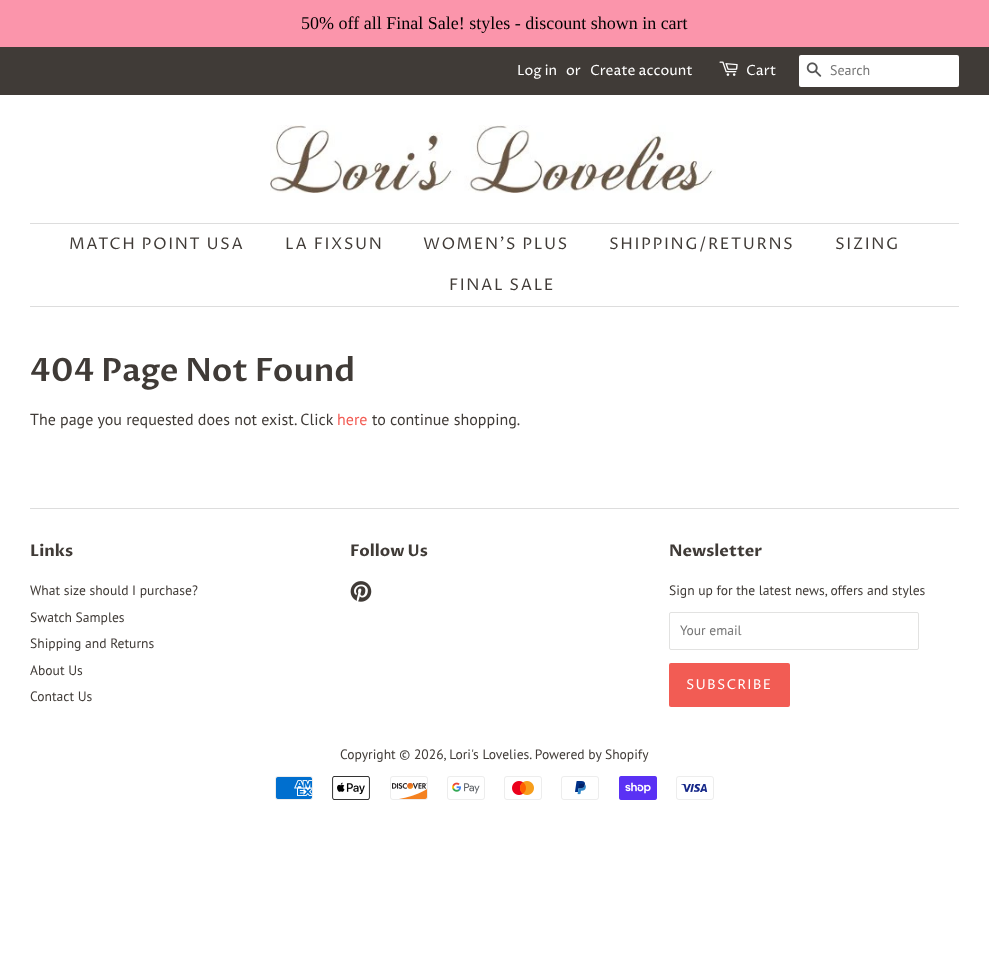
<?xml version="1.0" encoding="UTF-8"?>
<svg xmlns="http://www.w3.org/2000/svg" xmlns:xlink="http://www.w3.org/1999/xlink" width="989" height="980">
  <rect width="100%" height="100%" fill="#ffffff" />
  <rect width="989" height="47" fill="#fb95ab" />
  <rect y="47" width="989" height="48" fill="#403b37" />
  <image x="719" y="61" width="19" height="15" xlink:href="image1.png" />
  <rect x="799" y="55" width="160" height="32" rx="2" fill="#ffffff" />
  <image x="806" y="62" width="16" height="15" xlink:href="image2.png" />
  <image x="270" y="125" width="446" height="68" xlink:href="image3.png" />
  <rect x="30" y="223" width="929" height="1" fill="#dddddd" />
  <rect x="30" y="306" width="929" height="1" fill="#dddddd" />
  <rect x="30" y="508" width="929" height="1" fill="#dddddd" />
  <image x="350" y="581" width="22" height="21" xlink:href="image4.png" />
  <rect x="669.5" y="612.5" width="249" height="37" rx="1.5" fill="none" stroke="#e2e2e1" />
  <rect x="669" y="663" width="121" height="44" rx="2" fill="#f25c54" />
  <image x="275" y="776" width="38" height="24" xlink:href="image5.png" />
  <image x="332" y="776" width="38" height="24" xlink:href="image6.png" />
  <image x="390" y="776" width="38" height="24" xlink:href="image7.png" />
  <image x="447" y="776" width="38" height="24" xlink:href="image8.png" />
  <image x="504" y="776" width="38" height="24" xlink:href="image9.png" />
  <image x="561" y="776" width="38" height="24" xlink:href="image10.png" />
  <image x="619" y="776" width="38" height="24" xlink:href="image11.png" />
  <image x="676" y="776" width="38" height="24" xlink:href="image12.png" />
  <text x="301" y="29" style="font-family: Liberation Serif; font-size: 18px; fill: #000000">50% off all Final Sale! styles - discount shown in cart</text>
  <text x="517" y="75" style="font-family: Proza Libre; font-size: 14px; fill: #ffffff">Log in</text>
  <text x="566" y="75" style="font-family: Proza Libre; font-size: 14px; fill: #ffffff">or</text>
  <text x="590" y="75" style="font-family: Proza Libre; font-size: 14px; fill: #ffffff">Create account</text>
  <text x="746" y="75" style="font-family: Proza Libre; font-size: 14px; fill: #ffffff">Cart</text>
  <text x="830" y="75" style="font-family: PT Sans; font-size: 14px; fill: #757575">Search</text>
  <text x="69" y="249" style="font-family: Proza Libre; font-size: 16px; letter-spacing: 1.6px; fill: #403b37">MATCH POINT USA</text>
  <text x="285" y="249" style="font-family: Proza Libre; font-size: 16px; letter-spacing: 1.6px; fill: #403b37">LA FIXSUN</text>
  <text x="423" y="249" style="font-family: Proza Libre; font-size: 16px; letter-spacing: 1.6px; fill: #403b37">WOMEN'S PLUS</text>
  <text x="609" y="249" style="font-family: Proza Libre; font-size: 16px; letter-spacing: 1.6px; fill: #403b37">SHIPPING/RETURNS</text>
  <text x="835" y="249" style="font-family: Proza Libre; font-size: 16px; letter-spacing: 1.6px; fill: #403b37">SIZING</text>
  <text x="449" y="290" style="font-family: Proza Libre; font-size: 16px; letter-spacing: 1.6px; fill: #403b37">FINAL SALE</text>
  <text x="30" y="381" style="font-family: Proza Libre; font-size: 32px; font-weight: 600; fill: #403b37">404 Page Not Found</text>
  <text x="30" y="425" style="font-family: PT Sans; font-size: 16px; fill: #403b37">The page you requested does not exist. Click</text>
  <text x="337" y="425" style="font-family: PT Sans; font-size: 16px; fill: #f25c54">here</text>
  <text x="372" y="425" style="font-family: PT Sans; font-size: 16px; fill: #403b37">to continue shopping.</text>
  <text x="30" y="556" style="font-family: Proza Libre; font-size: 16px; font-weight: bold; fill: #403b37">Links</text>
  <text x="30" y="595" style="font-family: PT Sans; font-size: 13.6px; fill: #403b37">What size should I purchase?</text>
  <text x="30" y="622" style="font-family: PT Sans; font-size: 13.6px; fill: #403b37">Swatch Samples</text>
  <text x="30" y="648" style="font-family: PT Sans; font-size: 13.6px; fill: #403b37">Shipping and Returns</text>
  <text x="30" y="675" style="font-family: PT Sans; font-size: 13.6px; fill: #403b37">About Us</text>
  <text x="30" y="701" style="font-family: PT Sans; font-size: 13.6px; fill: #403b37">Contact Us</text>
  <text x="350" y="556" style="font-family: Proza Libre; font-size: 16px; font-weight: bold; fill: #403b37">Follow Us</text>
  <text x="669" y="556" style="font-family: Proza Libre; font-size: 16px; font-weight: bold; fill: #403b37">Newsletter</text>
  <text x="669" y="595" style="font-family: PT Sans; font-size: 13.6px; fill: #403b37">Sign up for the latest news, offers and styles</text>
  <text x="680" y="635" style="font-family: PT Sans; font-size: 13.6px; fill: #757575">Your email</text>
  <text x="686" y="689" style="font-family: Proza Libre; font-size: 13.6px; letter-spacing: 1.25px; fill: #ffffff">SUBSCRIBE</text>
  <text x="340" y="759" style="font-family: PT Sans; font-size: 13.6px; fill: #403b37">Copyright © 2026, Lori's Lovelies. Powered by Shopify</text>
</svg>
